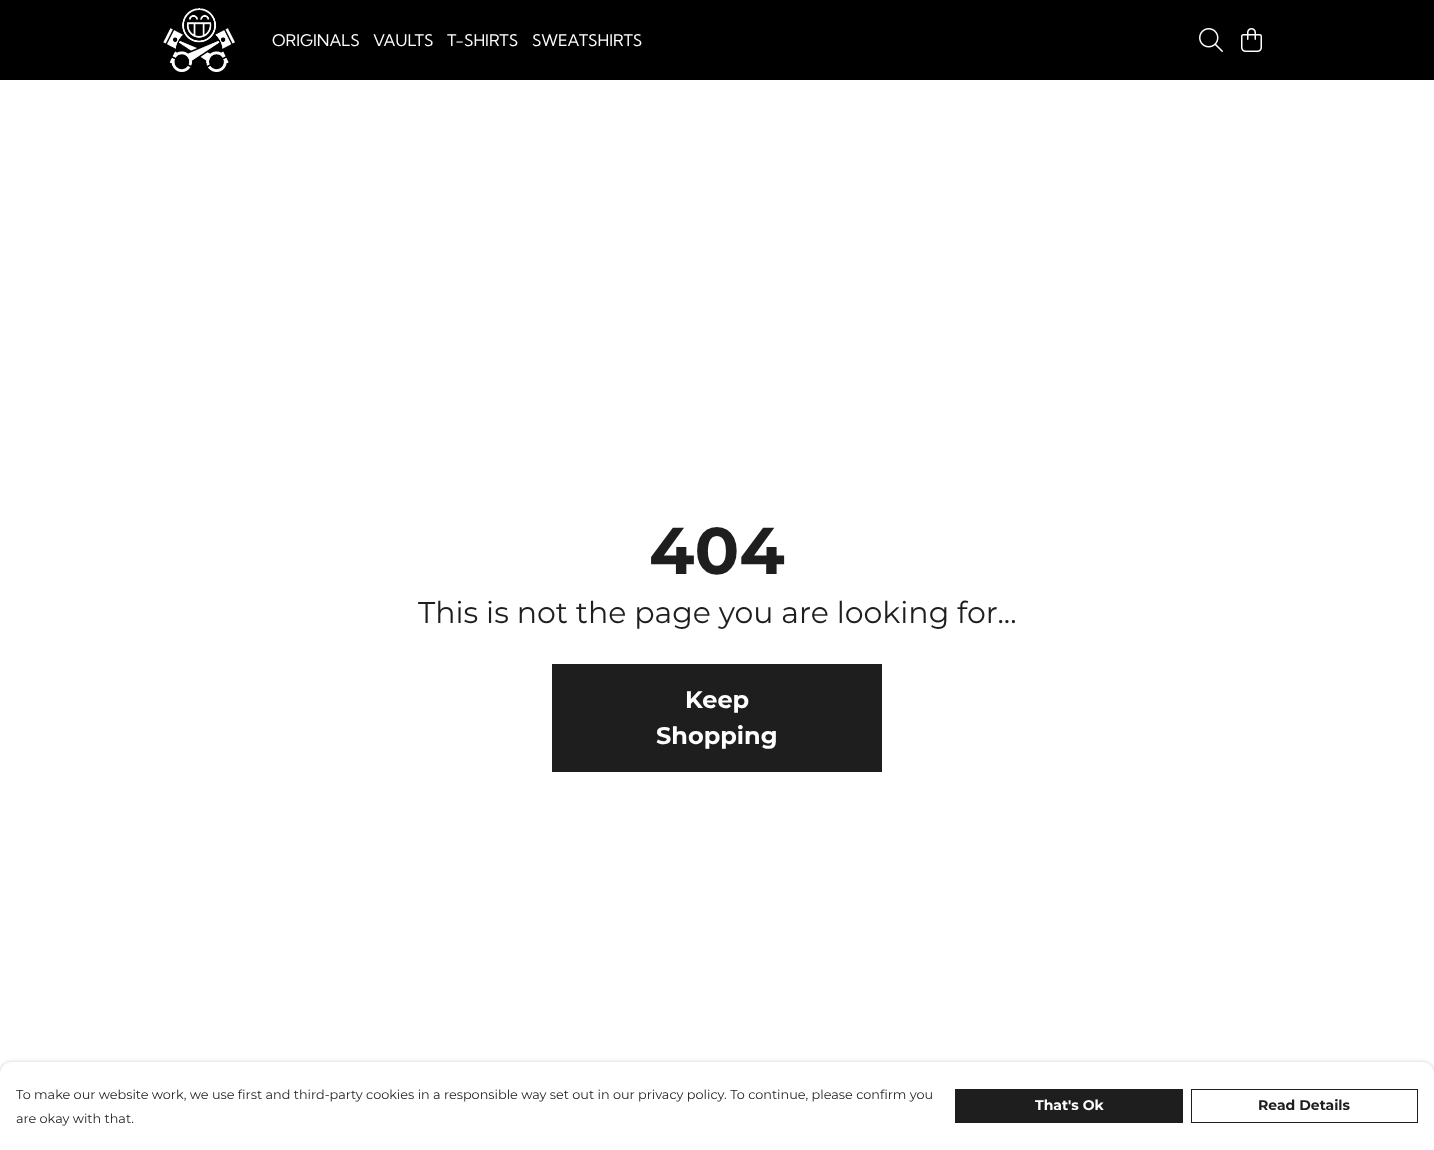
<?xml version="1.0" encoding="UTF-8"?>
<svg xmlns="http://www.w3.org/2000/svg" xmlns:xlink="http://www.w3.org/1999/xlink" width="1434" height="1150">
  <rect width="100%" height="100%" fill="#ffffff" />
  <rect width="1434" height="80" fill="#000000" />
  <image x="163" y="8" width="72" height="64" xlink:href="image1.png" />
  <image x="1199" y="28" width="24" height="24" xlink:href="image2.png" />
  <image x="1241" y="28" width="21" height="24" xlink:href="image3.png" />
  <rect x="552" y="664" width="330" height="108" fill="#1e1e1e" />
  <rect y="1062" width="1434" height="88" rx="12" fill="#000000" fill-opacity="0.2" filter="blur(2px)" />
  <path d="M 12 1062 h 1410 c 6.5 0 12 5.5 12 12 v 76 h -1434 v -76 c 0 -6.5 5.5 -12 12 -12 z" fill="#ffffff" />
  <rect x="955" y="1089" width="228" height="34" fill="#1e1e1e" />
  <rect x="1191.5" y="1089.5" width="226" height="33" fill="none" stroke="#1e1e1e" />
  <text x="272" y="46" style="font-family: Kumbh Sans; font-size: 16px; fill: #ffffff">ORIGINALS</text>
  <text x="373" y="46" style="font-family: Kumbh Sans; font-size: 16px; fill: #ffffff">VAULTS</text>
  <text x="447" y="46" style="font-family: Kumbh Sans; font-size: 16px; fill: #ffffff">T-SHIRTS</text>
  <text x="532" y="46" style="font-family: Kumbh Sans; font-size: 16px; fill: #ffffff">SWEATSHIRTS</text>
  <text x="649" y="574" style="font-family: Montserrat; font-size: 66px; font-weight: bold; fill: #1e1e1e">404</text>
  <text x="418" y="623" style="font-family: Montserrat; font-size: 30px; fill: #1e1e1e">This is not the page you are looking for...</text>
  <text x="685" y="708" style="font-family: Montserrat; font-size: 24px; font-weight: bold; fill: #ffffff">Keep</text>
  <text x="656" y="744" style="font-family: Montserrat; font-size: 24px; font-weight: bold; fill: #ffffff">Shopping</text>
  <text x="16" y="1099" style="font-family: Montserrat; font-size: 12.8px; fill: #1e1e1e">To make our website work, we use first and third-party cookies in a responsible way set out in our privacy policy. To continue, please confirm you</text>
  <text x="16" y="1123" style="font-family: Montserrat; font-size: 12.8px; fill: #1e1e1e">are okay with that.</text>
  <text x="1035" y="1110" style="font-family: Montserrat; font-size: 14px; font-weight: bold; fill: #ffffff">That's Ok</text>
  <text x="1258" y="1110" style="font-family: Montserrat; font-size: 14px; font-weight: bold; fill: #1e1e1e">Read Details</text>
</svg>
